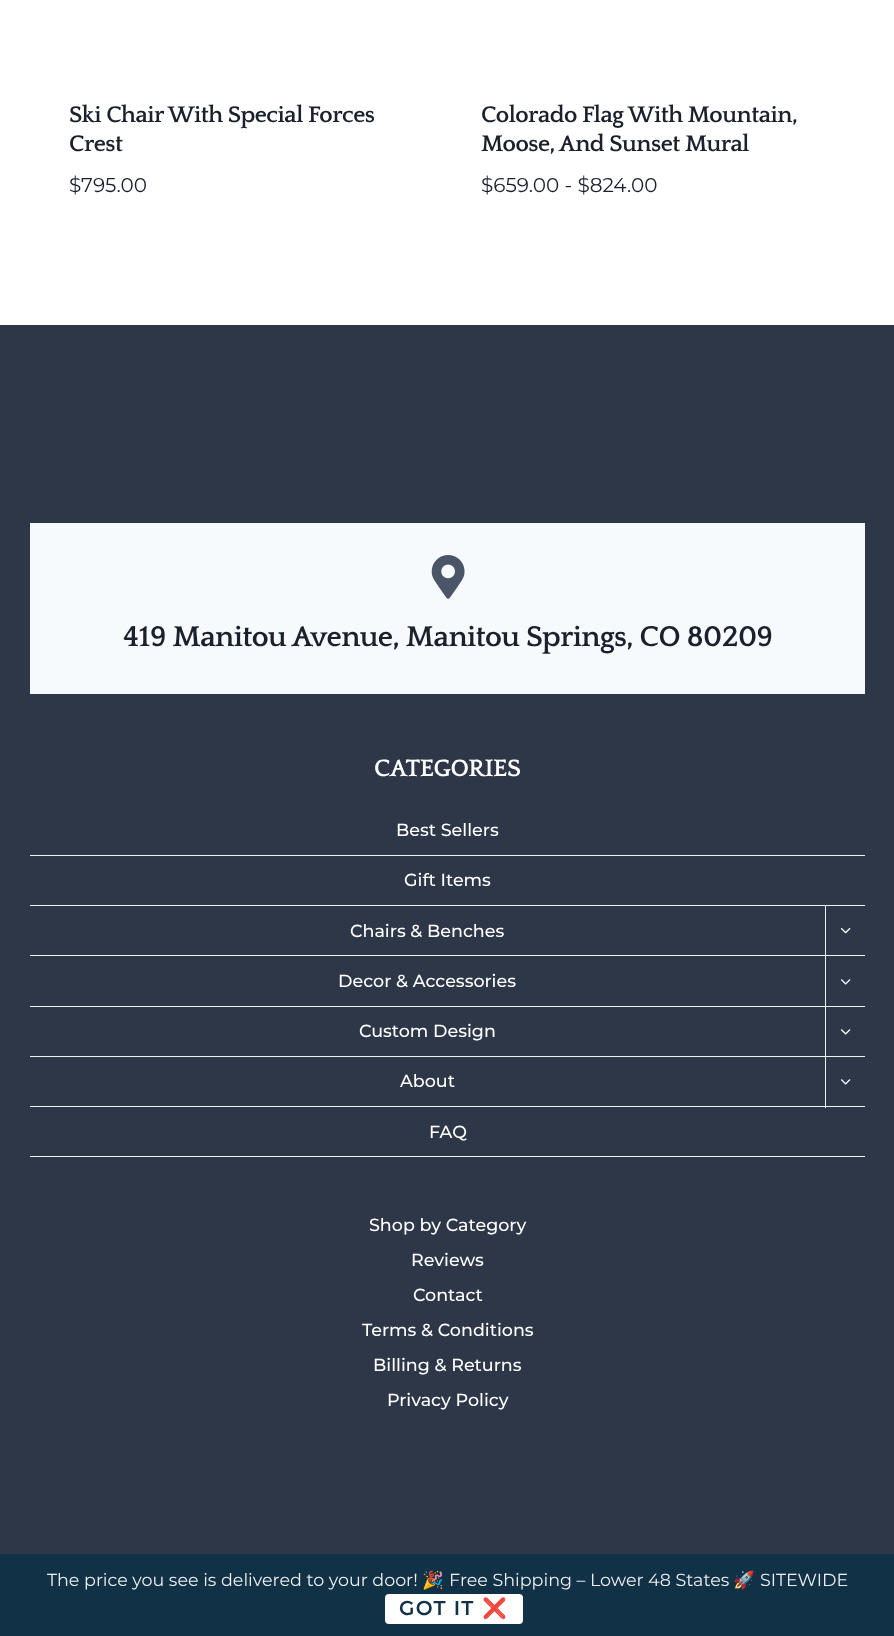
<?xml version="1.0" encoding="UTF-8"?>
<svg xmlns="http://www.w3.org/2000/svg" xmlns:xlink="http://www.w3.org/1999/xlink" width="894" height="1636">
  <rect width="100%" height="100%" fill="#ffffff" />
  <rect y="325" width="894" height="1229" fill="#2d3748" />
  <rect x="30" y="523" width="835" height="171" fill="#f7fafc" />
  <image x="431" y="555" width="34" height="44" xlink:href="image1.png" />
  <rect x="30" y="855" width="835" height="1" fill="#edf2f7" />
  <rect x="30" y="905" width="835" height="1" fill="#edf2f7" />
  <rect x="30" y="955" width="835" height="1" fill="#edf2f7" />
  <rect x="825" y="906" width="1" height="50" fill="#edf2f7" />
  <image x="840" y="928" width="11" height="6" xlink:href="image2.png" />
  <rect x="30" y="1006" width="835" height="1" fill="#edf2f7" />
  <rect x="825" y="956" width="1" height="52" fill="#edf2f7" />
  <image x="840" y="979" width="11" height="6" xlink:href="image3.png" />
  <rect x="30" y="1056" width="835" height="1" fill="#edf2f7" />
  <rect x="825" y="1008" width="1" height="50" fill="#edf2f7" />
  <image x="840" y="1029" width="11" height="6" xlink:href="image3.png" />
  <rect x="30" y="1106" width="835" height="1" fill="#edf2f7" />
  <rect x="825" y="1058" width="1" height="50" fill="#edf2f7" />
  <image x="840" y="1079" width="11" height="6" xlink:href="image3.png" />
  <rect x="30" y="1156" width="835" height="1" fill="#edf2f7" />
  <rect y="1554" width="894" height="82" fill="#113146" />
  <rect x="385" y="1594" width="138" height="30" rx="4" fill="#ffffff" />
  <text x="69" y="122" style="font-family: Quattrocento; font-size: 23.75px; font-weight: bold; letter-spacing: -0.5px; fill: #1a202c">Ski Chair With Special Forces</text>
  <text x="69" y="151" style="font-family: Quattrocento; font-size: 23.75px; font-weight: bold; letter-spacing: -0.5px; fill: #1a202c">Crest</text>
  <text x="69" y="192" style="font-family: Montserrat; font-size: 20px; fill: #1a202c">$795.00</text>
  <text x="481" y="122" style="font-family: Quattrocento; font-size: 23.75px; font-weight: bold; letter-spacing: -0.5px; fill: #1a202c">Colorado Flag With Mountain,</text>
  <text x="481" y="151" style="font-family: Quattrocento; font-size: 23.75px; font-weight: bold; letter-spacing: -0.5px; fill: #1a202c">Moose, And Sunset Mural</text>
  <text x="481" y="192" style="font-family: Montserrat; font-size: 20px; fill: #1a202c">$659.00 - $824.00</text>
  <text x="123" y="646" style="font-family: Quattrocento; font-size: 30px; font-weight: bold; letter-spacing: -0.6px; fill: #1a202c">419 Manitou Avenue, Manitou Springs, CO 80209</text>
  <text x="374" y="776" style="font-family: Quattrocento; font-size: 25px; font-weight: bold; letter-spacing: -0.5px; fill: #ffffff">CATEGORIES</text>
  <text x="396" y="836" style="font-family: Montserrat; font-size: 17.5px; font-weight: 500; fill: #ffffff">Best Sellers</text>
  <text x="404" y="886" style="font-family: Montserrat; font-size: 17.5px; font-weight: 500; fill: #ffffff">Gift Items</text>
  <text x="350" y="937" style="font-family: Montserrat; font-size: 17.5px; font-weight: 500; fill: #ffffff">Chairs &amp; Benches</text>
  <text x="338" y="987" style="font-family: Montserrat; font-size: 17.5px; font-weight: 500; fill: #ffffff">Decor &amp; Accessories</text>
  <text x="359" y="1037" style="font-family: Montserrat; font-size: 17.5px; font-weight: 500; fill: #ffffff">Custom Design</text>
  <text x="400" y="1087" style="font-family: Montserrat; font-size: 17.5px; font-weight: 500; fill: #ffffff">About</text>
  <text x="429" y="1138" style="font-family: Montserrat; font-size: 17.5px; font-weight: 500; fill: #ffffff">FAQ</text>
  <text x="369" y="1231" style="font-family: Montserrat; font-size: 17.5px; font-weight: 500; fill: #ffffff">Shop by Category</text>
  <text x="411" y="1266" style="font-family: Montserrat; font-size: 17.5px; font-weight: 500; fill: #ffffff">Reviews</text>
  <text x="413" y="1301" style="font-family: Montserrat; font-size: 17.5px; font-weight: 500; fill: #ffffff">Contact</text>
  <text x="362" y="1336" style="font-family: Montserrat; font-size: 17.5px; font-weight: 500; fill: #ffffff">Terms &amp; Conditions</text>
  <text x="373" y="1371" style="font-family: Montserrat; font-size: 17.5px; font-weight: 500; fill: #ffffff">Billing &amp; Returns</text>
  <text x="387" y="1406" style="font-family: Montserrat; font-size: 17.5px; font-weight: 500; fill: #ffffff">Privacy Policy</text>
  <text x="47" y="1586" style="font-family: Montserrat; font-size: 17.5px; fill: #eeeeee">The price you see is delivered to your door!</text>
  <text x="422" y="1586" style="font-family: Noto Color Emoji; font-size: 17.5px; fill: #eeeeee">🎉</text>
  <text x="449" y="1586" style="font-family: Montserrat; font-size: 17.5px; fill: #eeeeee">Free Shipping – Lower 48 States</text>
  <text x="733" y="1586" style="font-family: Noto Color Emoji; font-size: 17.5px; fill: #eeeeee">🚀</text>
  <text x="760" y="1586" style="font-family: Montserrat; font-size: 17.5px; fill: #eeeeee">SITEWIDE</text>
  <text x="399" y="1615" style="font-family: Montserrat; font-size: 20px; font-weight: 600; letter-spacing: 1.25px; fill: #113146">GOT IT</text>
  <text x="482" y="1615" style="font-family: Noto Color Emoji; font-size: 20px; font-weight: bold; letter-spacing: 1.25px; fill: #113146">❌</text>
</svg>
